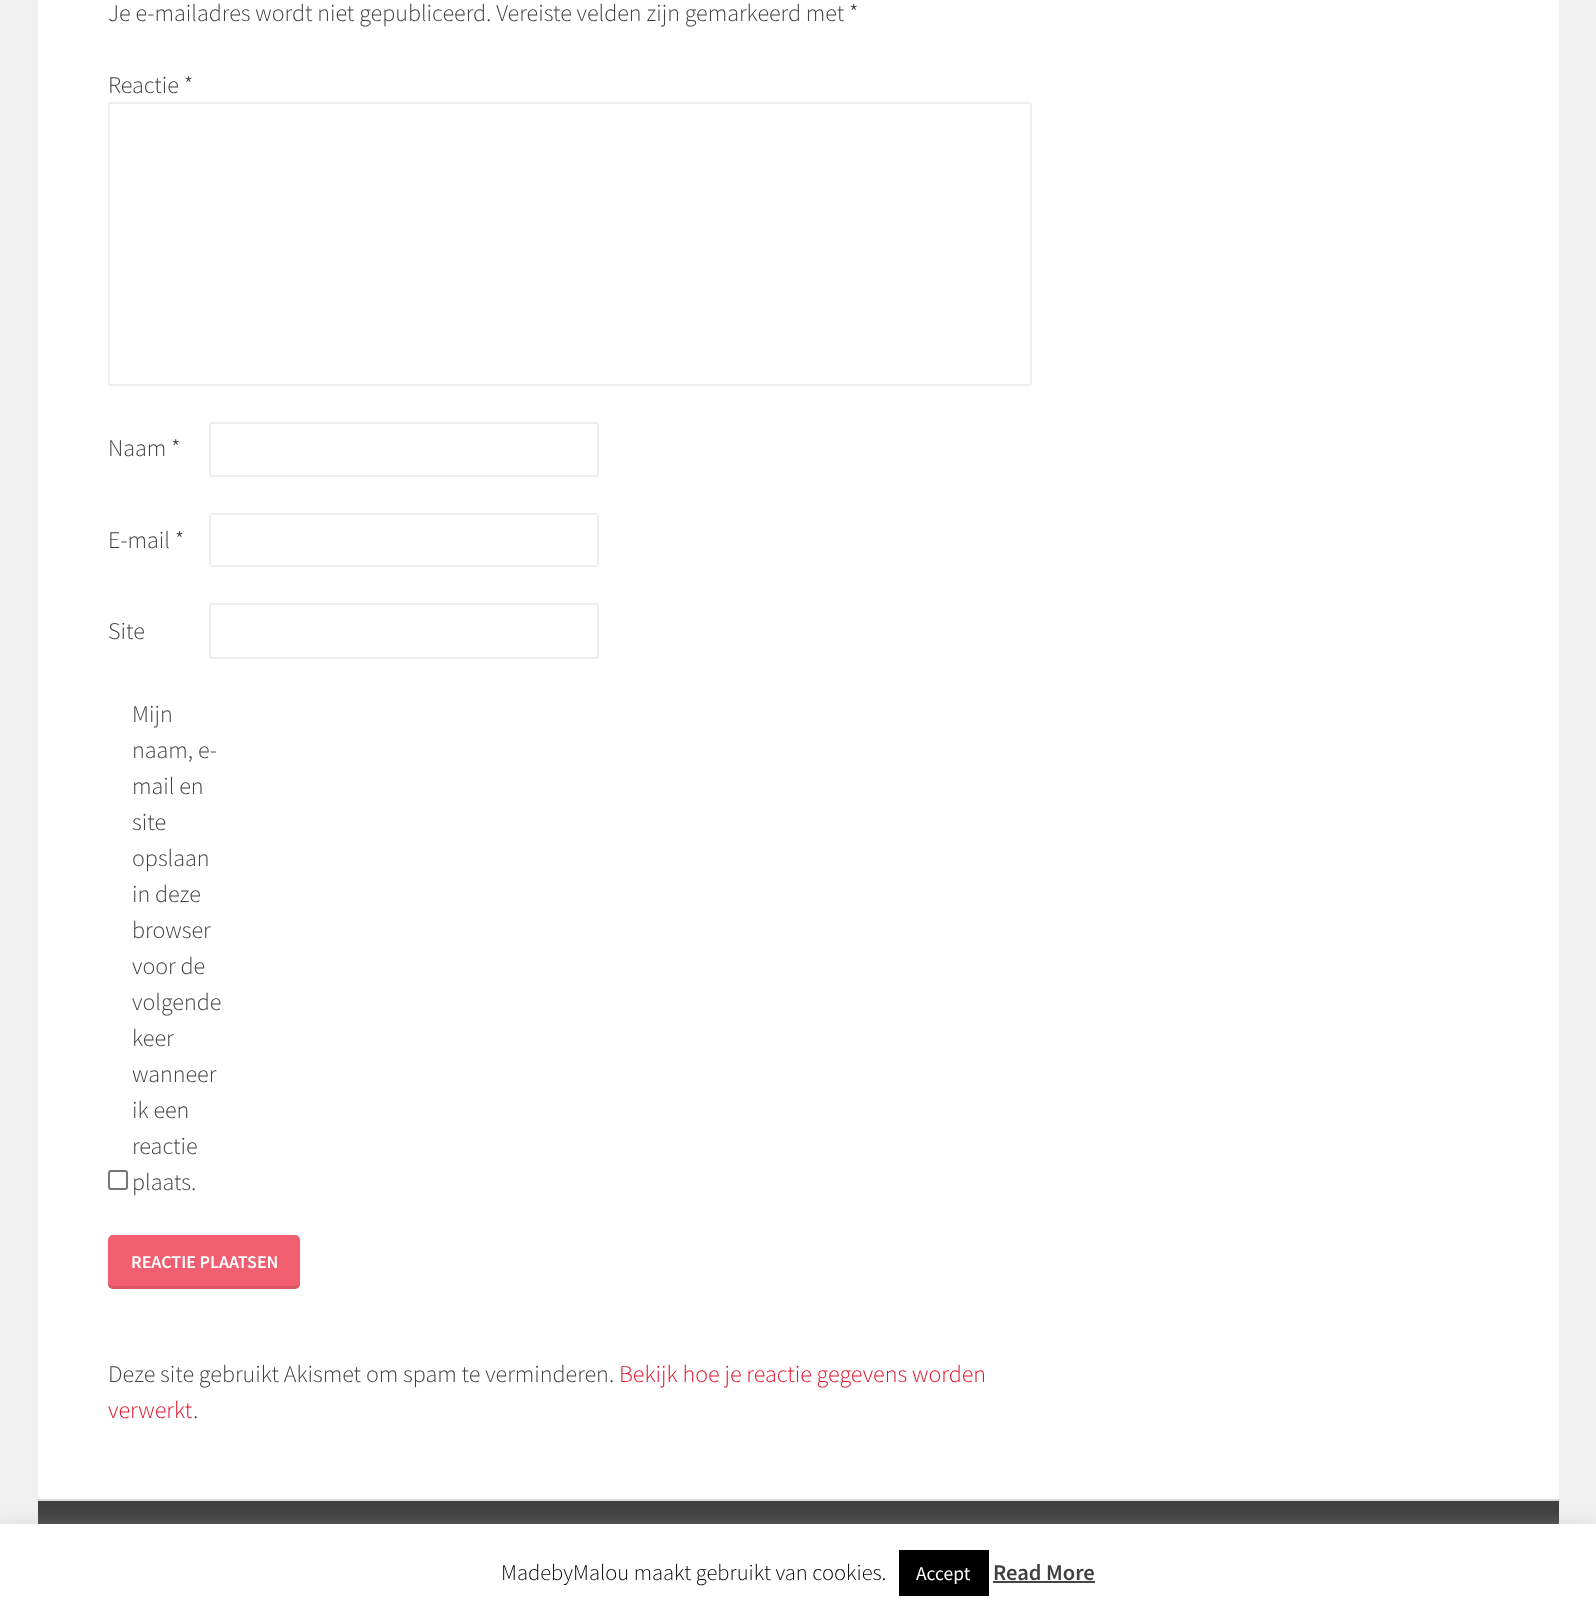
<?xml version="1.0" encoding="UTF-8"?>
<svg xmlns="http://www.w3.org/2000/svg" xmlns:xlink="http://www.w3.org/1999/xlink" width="1596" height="1614">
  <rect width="100%" height="100%" fill="#f0f0f0" />
  <rect x="38" width="1521" height="1499" fill="#ffffff" />
  <rect x="109" y="103" width="922" height="282" rx="2" fill="none" stroke="#eeeeee" stroke-width="2" />
  <rect x="210" y="423" width="388" height="53" rx="2" fill="none" stroke="#eeeeee" stroke-width="2" />
  <rect x="210" y="514" width="388" height="52" rx="2" fill="none" stroke="#eeeeee" stroke-width="2" />
  <rect x="210" y="604" width="388" height="54" rx="2" fill="none" stroke="#eeeeee" stroke-width="2" />
  <rect x="109" y="1171" width="18" height="18" rx="2" fill="none" stroke="#767676" stroke-width="2" />
  <rect x="108" y="1235" width="192" height="54" rx="5" fill="#f25f70" />
  <path d="M 108 1281 v 3 c 0 3 2 5 5 5 h 182 c 3 0 5 -2 5 -5 v -3 c 0 2 -2 5 -4 5 h -184 c -2 0 -4 -3 -4 -5 z" fill="#000000" fill-opacity="0.1" />
  <rect x="38" y="1501" width="1521" height="23" fill="#404040" />
  <rect x="38" y="1499" width="1521" height="2" fill="#d9d9d9" />
  <rect y="1523" width="1596" height="90" fill="#acabab" fill-opacity="0.3" filter="blur(7.5px)" />
  <rect y="1524" width="1596" height="90" fill="#ffffff" />
  <rect x="899" y="1550" width="90" height="46" fill="#000000" />
  <rect x="993" y="1581" width="102" height="2" fill="#444444" />
  <text x="108" y="21" style="font-family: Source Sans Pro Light; font-size: 24px; font-weight: 300; fill: #404040">Je e-mailadres wordt niet gepubliceerd. Vereiste velden zijn gemarkeerd met *</text>
  <text x="108" y="93" style="font-family: Source Sans Pro Light; font-size: 24px; font-weight: 300; fill: #404040">Reactie *</text>
  <text x="108" y="456" style="font-family: Source Sans Pro Light; font-size: 24px; font-weight: 300; fill: #404040">Naam *</text>
  <text x="108" y="548" style="font-family: Source Sans Pro Light; font-size: 24px; font-weight: 300; fill: #404040">E-mail *</text>
  <text x="108" y="639" style="font-family: Source Sans Pro Light; font-size: 24px; font-weight: 300; fill: #404040">Site</text>
  <text x="132" y="722" style="font-family: Source Sans Pro Light; font-size: 24px; font-weight: 300; fill: #404040">Mijn</text>
  <text x="132" y="758" style="font-family: Source Sans Pro Light; font-size: 24px; font-weight: 300; fill: #404040">naam, e-</text>
  <text x="132" y="794" style="font-family: Source Sans Pro Light; font-size: 24px; font-weight: 300; fill: #404040">mail en</text>
  <text x="132" y="830" style="font-family: Source Sans Pro Light; font-size: 24px; font-weight: 300; fill: #404040">site</text>
  <text x="132" y="866" style="font-family: Source Sans Pro Light; font-size: 24px; font-weight: 300; fill: #404040">opslaan</text>
  <text x="132" y="902" style="font-family: Source Sans Pro Light; font-size: 24px; font-weight: 300; fill: #404040">in deze</text>
  <text x="132" y="938" style="font-family: Source Sans Pro Light; font-size: 24px; font-weight: 300; fill: #404040">browser</text>
  <text x="132" y="974" style="font-family: Source Sans Pro Light; font-size: 24px; font-weight: 300; fill: #404040">voor de</text>
  <text x="132" y="1010" style="font-family: Source Sans Pro Light; font-size: 24px; font-weight: 300; fill: #404040">volgende</text>
  <text x="132" y="1046" style="font-family: Source Sans Pro Light; font-size: 24px; font-weight: 300; fill: #404040">keer</text>
  <text x="132" y="1082" style="font-family: Source Sans Pro Light; font-size: 24px; font-weight: 300; fill: #404040">wanneer</text>
  <text x="132" y="1118" style="font-family: Source Sans Pro Light; font-size: 24px; font-weight: 300; fill: #404040">ik een</text>
  <text x="132" y="1154" style="font-family: Source Sans Pro Light; font-size: 24px; font-weight: 300; fill: #404040">reactie</text>
  <text x="132" y="1190" style="font-family: Source Sans Pro Light; font-size: 24px; font-weight: 300; fill: #404040">plaats.</text>
  <text x="131" y="1268" style="font-family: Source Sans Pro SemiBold; font-size: 18px; font-weight: 600; fill: #ffffff">REACTIE PLAATSEN</text>
  <text x="108" y="1382" style="font-family: Source Sans Pro Light; font-size: 24px; font-weight: 300; fill: #404040">Deze site gebruikt Akismet om spam te verminderen.</text>
  <text x="619" y="1382" style="font-family: Source Sans Pro Light; font-size: 24px; font-weight: 300; fill: #e1122a">Bekijk hoe je reactie gegevens worden</text>
  <text x="108" y="1418" style="font-family: Source Sans Pro Light; font-size: 24px; font-weight: 300; fill: #e1122a">verwerkt</text>
  <text x="193" y="1418" style="font-family: Source Sans Pro Light; font-size: 24px; font-weight: 300; fill: #404040">.</text>
  <text x="501" y="1580" style="font-family: Source Sans Pro Light; font-size: 22.5px; font-weight: 300; fill: #000000">MadebyMalou maakt gebruikt van cookies.</text>
  <text x="916" y="1580" style="font-family: Source Sans Pro; font-size: 19.5px; fill: #ffffff">Accept</text>
  <text x="993" y="1580" style="font-family: Source Sans Pro SemiBold; font-size: 22.5px; font-weight: 600; fill: #404040">Read More</text>
</svg>
